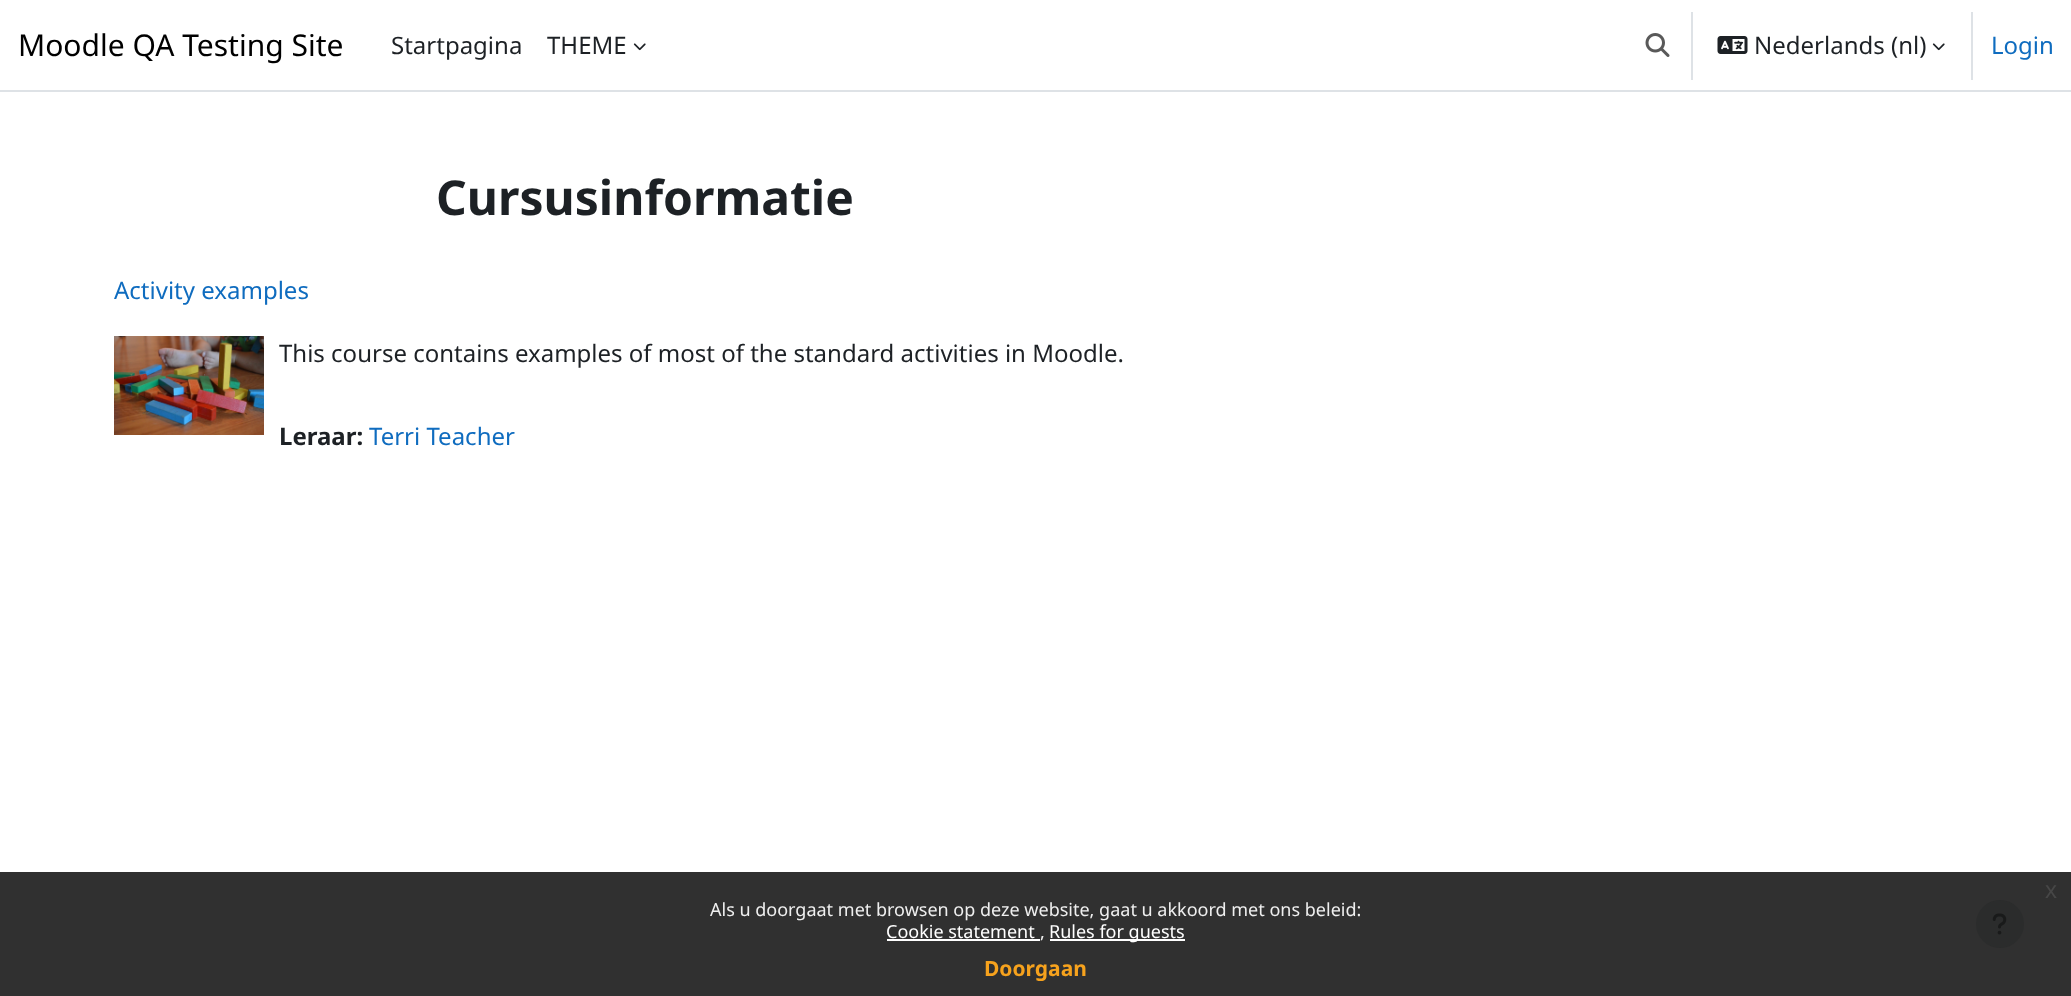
<?xml version="1.0" encoding="UTF-8"?>
<svg xmlns="http://www.w3.org/2000/svg" xmlns:xlink="http://www.w3.org/1999/xlink" width="2071" height="996">
  <rect width="100%" height="100%" fill="#ffffff" />
  <rect y="872" width="2071" height="124" fill="#303030" />
  <rect y="90" width="2071" height="2" fill="#dee2e6" />
  <image x="633" y="43" width="13" height="8" xlink:href="image1.png" />
  <image x="1645" y="33" width="25" height="24" xlink:href="image2.png" />
  <rect x="1691" y="12" width="2" height="68" fill="#dee2e6" />
  <image x="1717" y="36" width="31" height="18" xlink:href="image3.png" />
  <image x="1932" y="43" width="13" height="8" xlink:href="image1.png" />
  <rect x="1971" y="12" width="2" height="68" fill="#dee2e6" />
  <image x="114" y="336" width="150" height="99" xlink:href="image4.png" />
  <circle cx="2000" cy="924" r="24" fill="#2b2c2c" />
  <image x="1992" y="913" width="15" height="22" xlink:href="image5.png" />
  <rect x="887" y="939" width="153" height="2" fill="#ffffff" />
  <rect x="1050" y="939" width="135" height="2" fill="#ffffff" />
  <text x="18" y="56" style="font-family: Noto Sans; font-size: 30px; fill: #000000">Moodle QA Testing Site</text>
  <text x="391" y="54" style="font-family: Noto Sans; font-size: 24px; fill: #1d2125">Startpagina</text>
  <text x="547" y="54" style="font-family: Noto Sans; font-size: 24px; fill: #1d2125">THEME</text>
  <text x="1754" y="54" style="font-family: Noto Sans; font-size: 24px; fill: #1d2125">Nederlands (nl)</text>
  <text x="1991" y="54" style="font-family: Noto Sans; font-size: 24px; fill: #0f6cbf">Login</text>
  <text x="436" y="215" style="font-family: Noto Sans; font-size: 48px; font-weight: bold; fill: #1d2125">Cursusinformatie</text>
  <text x="114" y="299" style="font-family: Noto Sans; font-size: 24px; fill: #0f6cbf">Activity examples</text>
  <text x="279" y="362" style="font-family: Noto Sans; font-size: 24px; fill: #1d2125">This course contains examples of most of the standard activities in Moodle.</text>
  <text x="279" y="445" style="font-family: Noto Sans; font-size: 24px; font-weight: bold; fill: #1d2125">Leraar:</text>
  <text x="369" y="445" style="font-family: Noto Sans; font-size: 24px; fill: #0f6cbf">Terri Teacher</text>
  <text x="2045" y="898" style="font-family: Liberation Sans; font-size: 24px; fill: #474747">x</text>
  <text x="710" y="916" style="font-family: Noto Sans; font-size: 18px; fill: #efefef">Als u doorgaat met browsen op deze website, gaat u akkoord met ons beleid:</text>
  <text x="886" y="938" style="font-family: Noto Sans; font-size: 18px; fill: #ffffff">Cookie statement</text>
  <text x="1040" y="938" style="font-family: Noto Sans; font-size: 18px; fill: #efefef">,</text>
  <text x="1049" y="938" style="font-family: Noto Sans; font-size: 18px; fill: #ffffff">Rules for guests</text>
  <text x="984" y="976" style="font-family: Noto Sans; font-size: 21px; font-weight: bold; fill: #f6a21d">Doorgaan</text>
</svg>
